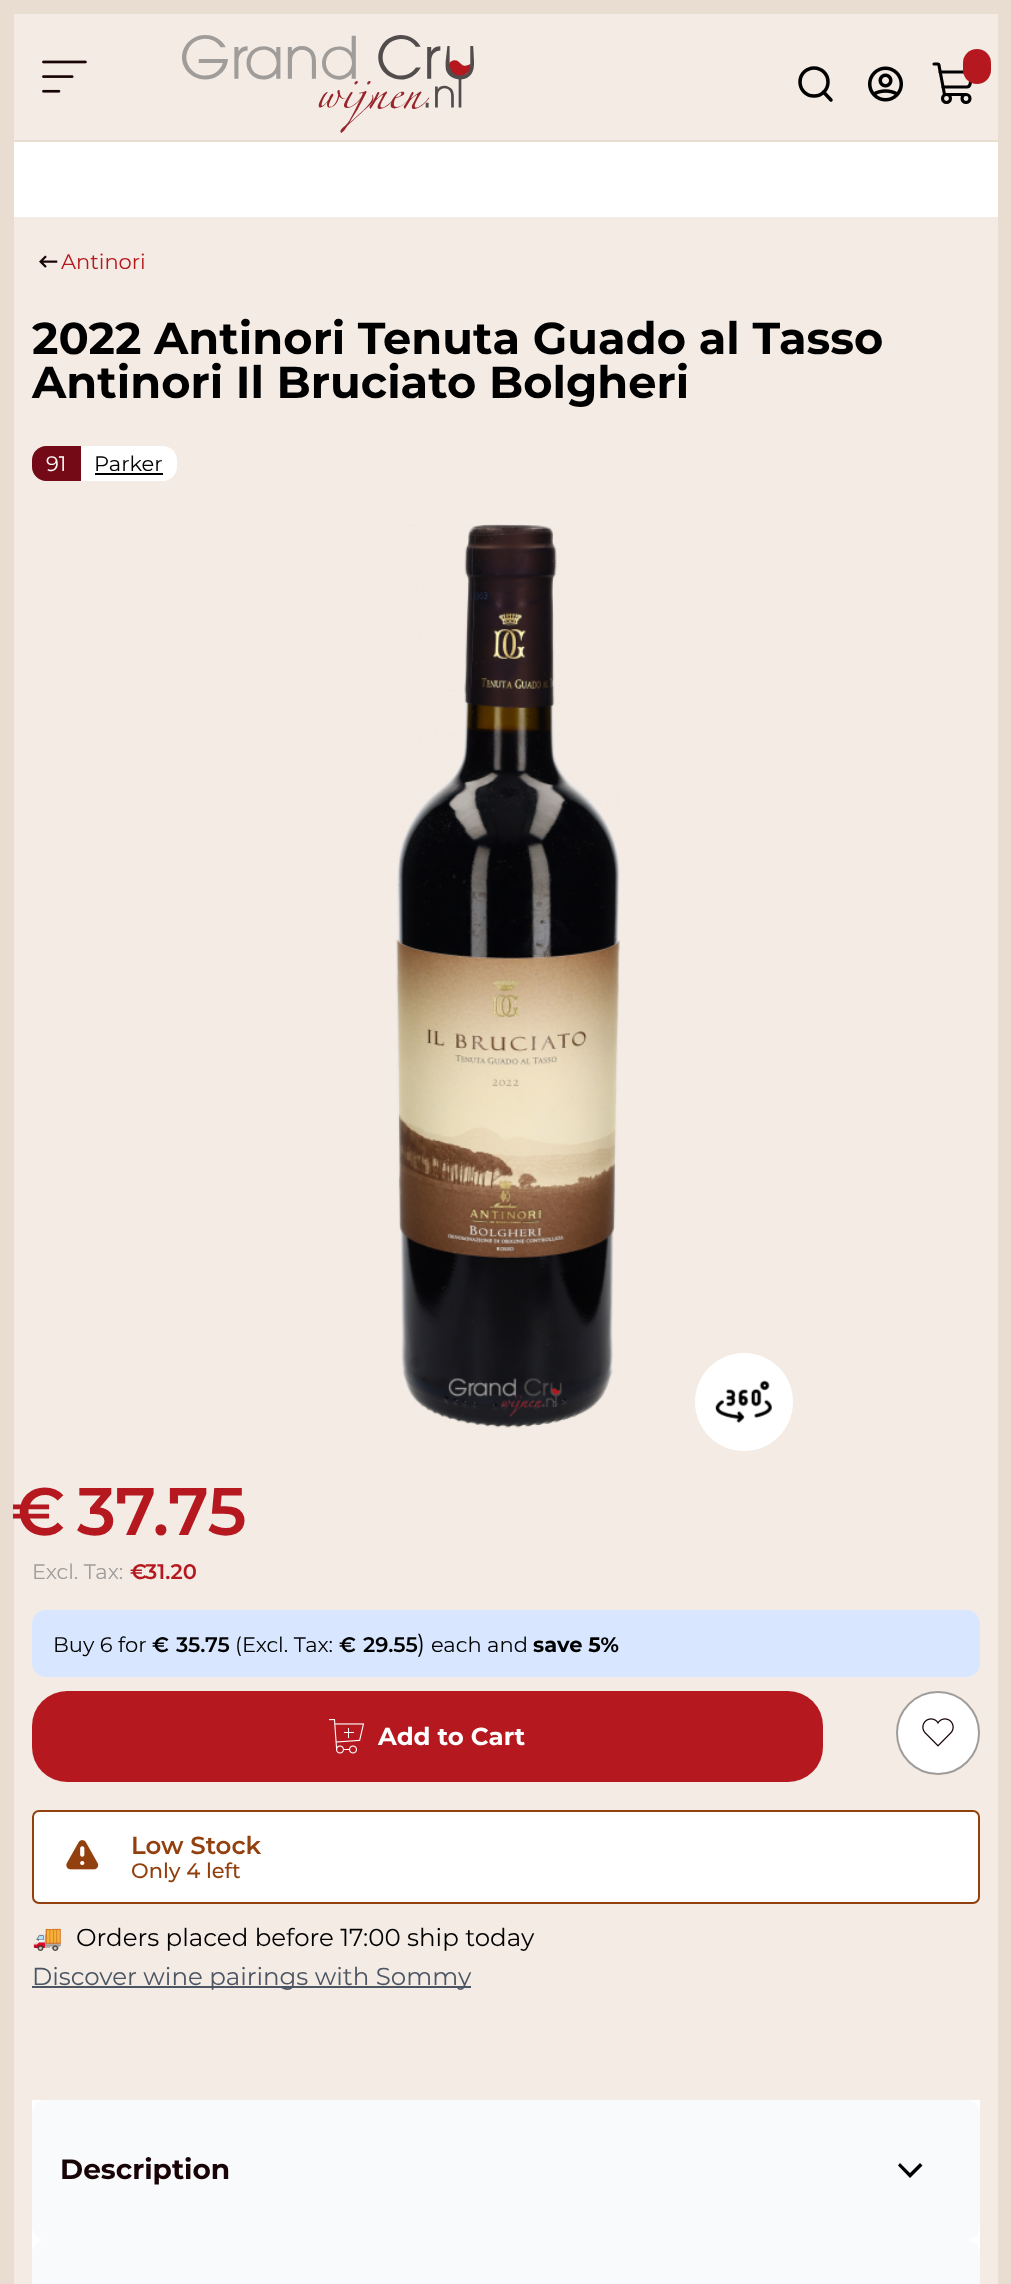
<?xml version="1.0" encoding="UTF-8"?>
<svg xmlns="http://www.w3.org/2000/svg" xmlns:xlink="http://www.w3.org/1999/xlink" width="1011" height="2284">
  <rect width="100%" height="100%" fill="#e9dcd1" />
  <rect x="14" y="217" width="984" height="2067" fill="#f3ebe4" />
  <rect x="14" y="14" width="984" height="126" fill="#f3ebe4" />
  <image x="42" y="60" width="45" height="33" xlink:href="image1.png" />
  <image x="182" y="35" width="292" height="98" xlink:href="image2.png" />
  <circle cx="814" cy="82" r="14" fill="none" stroke="#000000" stroke-width="3.5" />
  <path d="M 831 100 l -7.5 -8" fill="none" stroke="#000000" stroke-width="3.5" stroke-linecap="round" stroke-linejoin="round" />
  <image x="868" y="66" width="35" height="36" xlink:href="image3.png" />
  <path d="M 966 94.5 h -21.5 l -5.5 -29 c 0 -1 -0.5 -1.5 -1.5 -1.5 h -3.5" fill="none" stroke="#000000" stroke-width="3.1" stroke-linecap="round" stroke-linejoin="round" />
  <circle cx="946.5" cy="98.5" r="4" fill="none" stroke="#000000" stroke-width="3.1" />
  <circle cx="966" cy="98.5" r="4" fill="none" stroke="#000000" stroke-width="3.1" />
  <path d="M 943 87 h 24 c 1.5 0 2.5 -1 3 -2.5 l 2.5 -12.5 h -32.5" fill="none" stroke="#000000" stroke-width="3.1" stroke-linecap="round" stroke-linejoin="round" />
  <rect x="963" y="49" width="28" height="35" rx="14" fill="#b5191f" />
  <rect x="14" y="142" width="984" height="75" fill="#ffffff" />
  <image x="39" y="255" width="19" height="13" xlink:href="image4.png" />
  <path d="M 46 446 h 35 v 35 h -35 c -7.5 0 -14 -6.5 -14 -14 v -7 c 0 -7.5 6.5 -14 14 -14 z" fill="#730a16" />
  <path d="M 81 446 h 82 c 7.5 0 14 6.5 14 14 v 7 c 0 7.5 -6.5 14 -14 14 h -82 z" fill="#ffffff" />
  <rect x="95" y="473" width="68" height="2" fill="#000000" />
  <circle cx="744" cy="1402" r="49" fill="#ffffff" />
  <image x="715" y="1380" width="57" height="43" xlink:href="image5.png" />
  <image x="396" y="524" width="224" height="904" xlink:href="image6.png" />
  <rect x="32" y="1610" width="948" height="67" rx="14" fill="#d8e7ff" />
  <rect x="32" y="1691" width="791" height="91" rx="35" fill="#b5191f" />
  <image x="329" y="1719" width="35" height="35" xlink:href="image7.png" />
  <circle cx="938" cy="1733" r="41" fill="#ffffff" stroke="#9f9c9a" stroke-width="2" />
  <image x="922" y="1718" width="32" height="29" xlink:href="image8.png" />
  <rect x="33" y="1811" width="946" height="92" rx="6" fill="#ffffff" stroke="#92400e" stroke-width="2" />
  <image x="66" y="1840" width="33" height="30" xlink:href="image9.png" />
  <rect x="32" y="1986" width="439" height="2" fill="#4b5563" />
  <rect x="32" y="2100" width="948" height="154" fill="#ffffff" />
  <rect x="32" y="2100" width="948" height="140" rx="14" fill="#f9fafb" />
  <path d="M 922.5 2165.5 l -12.5 12.5 l -12 -12.5 l 2 -2.5 l 10 10 l 10 -10 z" fill="#000000" fill-rule="evenodd" />
  <rect x="32" y="2240" width="948" height="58" rx="14" fill="#f9fafb" />
  <text x="61" y="269" style="font-family: Montserrat; font-size: 21px; fill: #b5191f">Antinori</text>
  <text x="32" y="354" style="font-family: Montserrat; font-size: 44.75px; font-weight: bold; fill: #000000">2022 Antinori Tenuta Guado al Tasso</text>
  <text x="32" y="398" style="font-family: Montserrat; font-size: 44.75px; font-weight: bold; fill: #000000">Antinori Il Bruciato Bolgheri</text>
  <text x="46" y="471" style="font-family: Montserrat; font-size: 21px; fill: #ffffff">91</text>
  <text x="94" y="471" style="font-family: Montserrat; font-size: 21px; fill: #000000">Parker</text>
  <text x="11" y="1535" style="font-family: Montserrat; font-size: 67px; font-weight: 600; fill: #b5191f">€</text>
  <text x="77" y="1535" style="font-family: Montserrat; font-size: 67px; font-weight: 600; fill: #b5191f">37.75</text>
  <text x="32" y="1579" style="font-family: Montserrat; font-size: 21px; fill: #9f9c9a">Excl. Tax:</text>
  <text x="130" y="1579" style="font-family: Montserrat; font-size: 21px; font-weight: 600; fill: #b5191f">€</text>
  <text x="145" y="1579" style="font-family: Montserrat; font-size: 21px; font-weight: 600; fill: #b5191f">31.20</text>
  <text x="53" y="1652" style="font-family: Montserrat; font-size: 21px; fill: #000000">Buy 6 for</text>
  <text x="152" y="1652" style="font-family: Montserrat; font-size: 21px; font-weight: 600; fill: #000000">€</text>
  <text x="176" y="1652" style="font-family: Montserrat; font-size: 21px; font-weight: 600; fill: #000000">35.75</text>
  <text x="235" y="1652" style="font-family: Montserrat; font-size: 21px; fill: #000000">(Excl. Tax:</text>
  <text x="339" y="1652" style="font-family: Montserrat; font-size: 21px; font-weight: 600; fill: #000000">€</text>
  <text x="363" y="1652" style="font-family: Montserrat; font-size: 21px; font-weight: 600; fill: #000000">29.55</text>
  <text x="417" y="1652" style="font-family: Montserrat; font-size: 24.5px; fill: #000000">)</text>
  <text x="431" y="1652" style="font-family: Montserrat; font-size: 21px; fill: #000000">each and</text>
  <text x="533" y="1652" style="font-family: Montserrat; font-size: 21px; font-weight: bold; fill: #000000">save 5%</text>
  <text x="378" y="1745" style="font-family: Montserrat; font-size: 24.5px; font-weight: bold; fill: #ffffff">Add to Cart</text>
  <text x="131" y="1854" style="font-family: Montserrat; font-size: 24.5px; font-weight: 600; fill: #92400e">Low Stock</text>
  <text x="131" y="1878" style="font-family: Montserrat; font-size: 21px; font-weight: 500; fill: #92400e">Only 4 left</text>
  <text x="32" y="1946" style="font-family: Noto Color Emoji; font-size: 24.5px; fill: #16a34a">🚚</text>
  <text x="76" y="1946" style="font-family: Montserrat; font-size: 24.5px; fill: #000000">Orders placed before 17:00 ship today</text>
  <text x="32" y="1985" style="font-family: Montserrat; font-size: 24.5px; fill: #4b5563">Discover wine pairings with Sommy</text>
  <text x="60" y="2179" style="font-family: Montserrat; font-size: 28px; font-weight: bold; fill: #180306">Description</text>
</svg>
